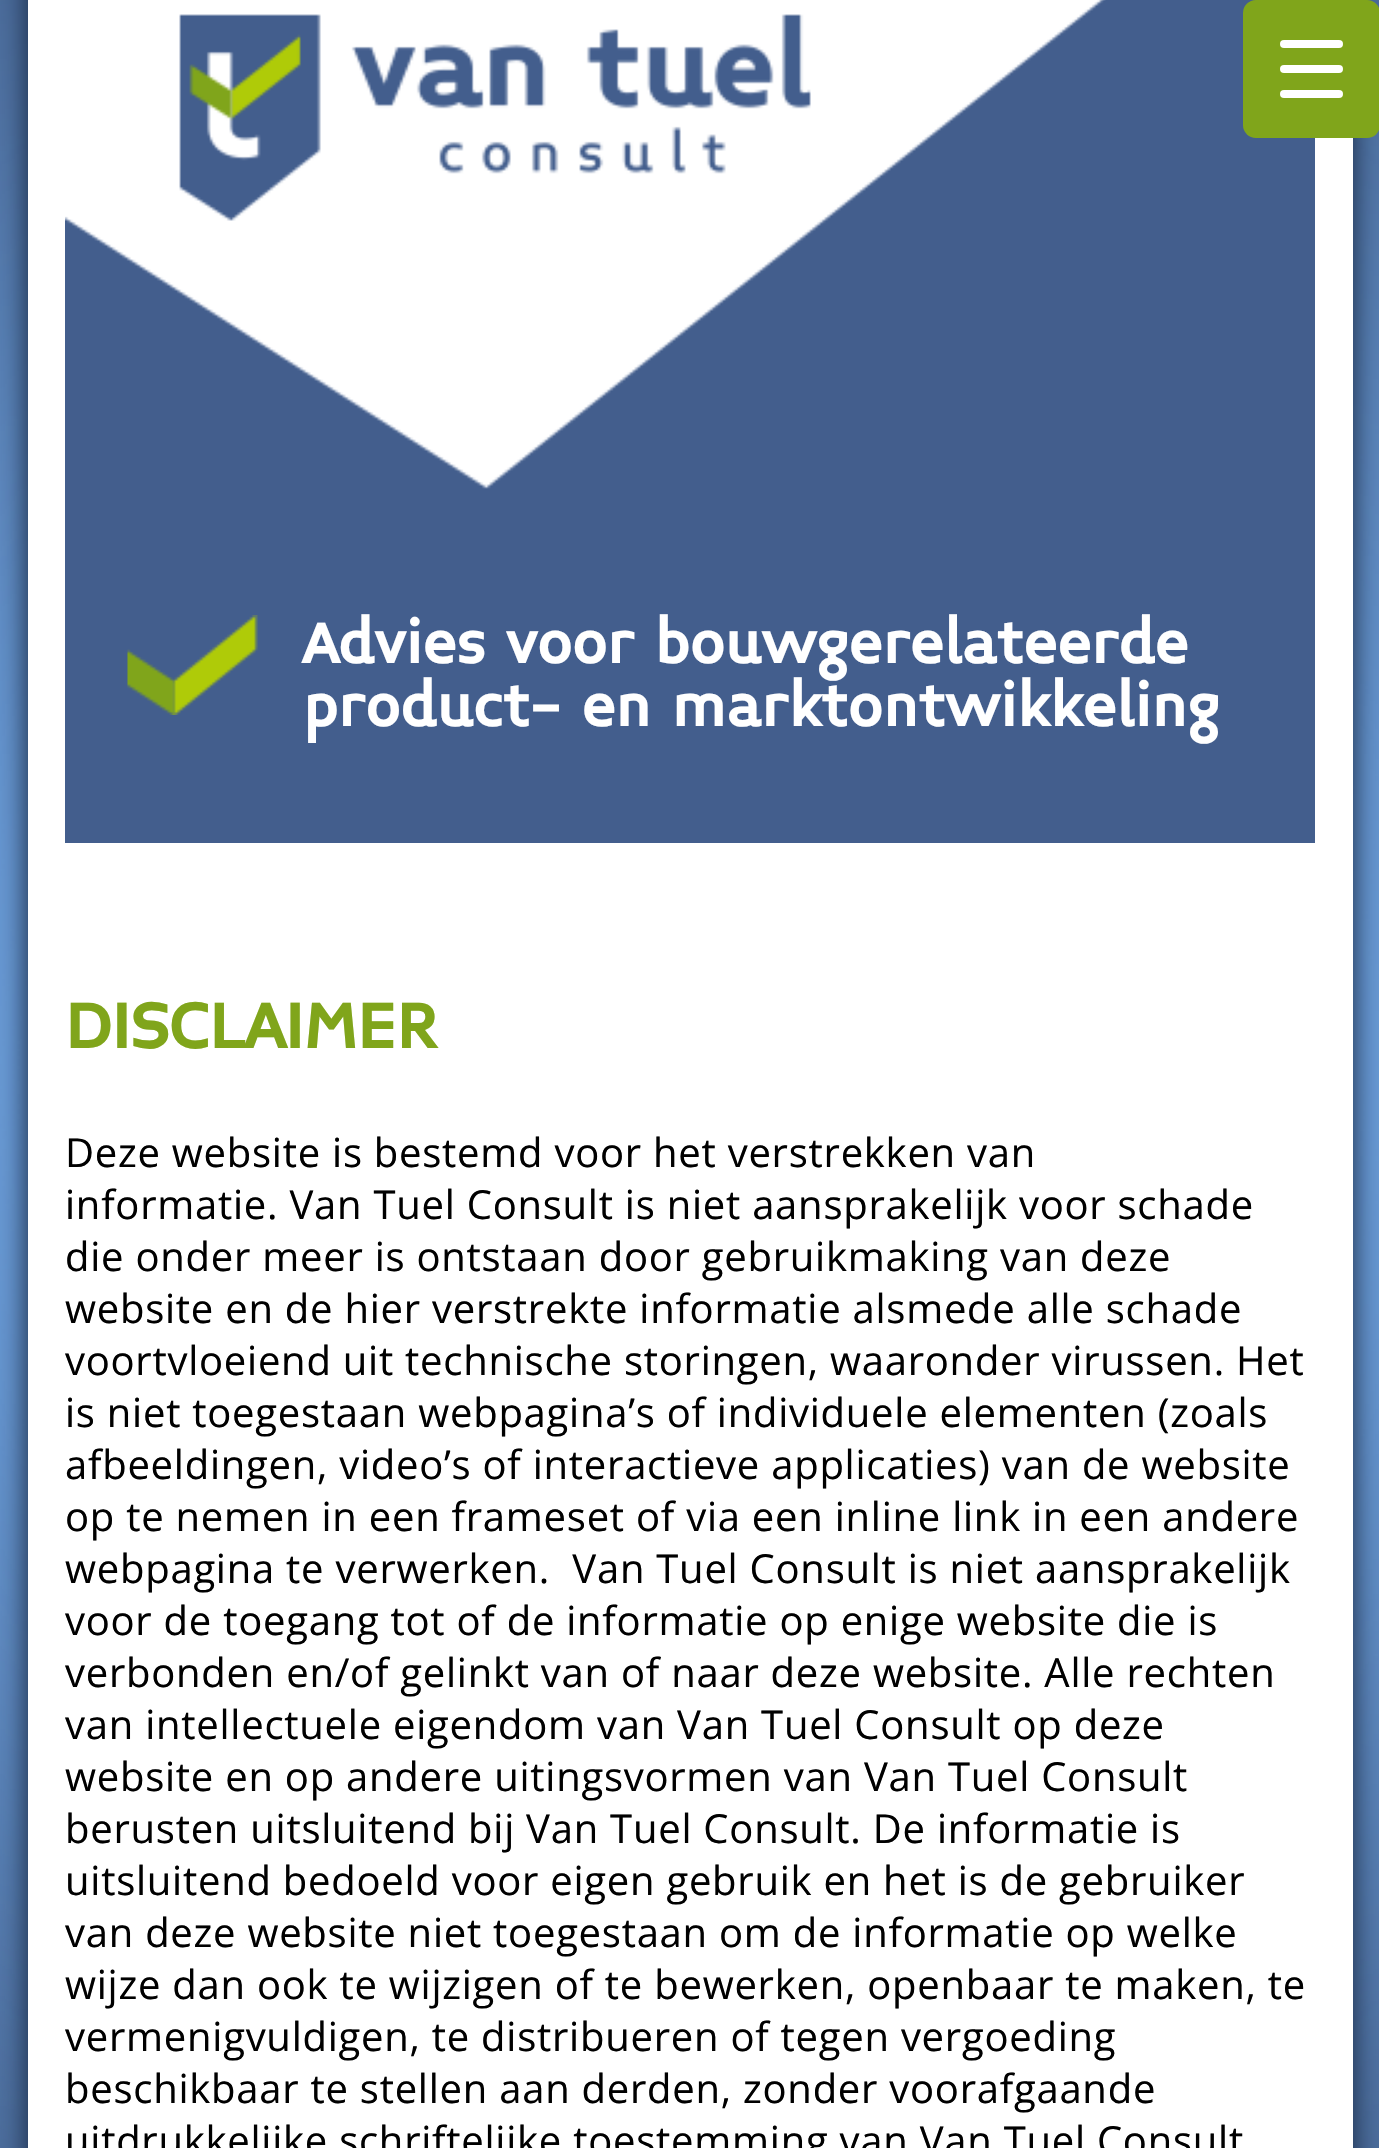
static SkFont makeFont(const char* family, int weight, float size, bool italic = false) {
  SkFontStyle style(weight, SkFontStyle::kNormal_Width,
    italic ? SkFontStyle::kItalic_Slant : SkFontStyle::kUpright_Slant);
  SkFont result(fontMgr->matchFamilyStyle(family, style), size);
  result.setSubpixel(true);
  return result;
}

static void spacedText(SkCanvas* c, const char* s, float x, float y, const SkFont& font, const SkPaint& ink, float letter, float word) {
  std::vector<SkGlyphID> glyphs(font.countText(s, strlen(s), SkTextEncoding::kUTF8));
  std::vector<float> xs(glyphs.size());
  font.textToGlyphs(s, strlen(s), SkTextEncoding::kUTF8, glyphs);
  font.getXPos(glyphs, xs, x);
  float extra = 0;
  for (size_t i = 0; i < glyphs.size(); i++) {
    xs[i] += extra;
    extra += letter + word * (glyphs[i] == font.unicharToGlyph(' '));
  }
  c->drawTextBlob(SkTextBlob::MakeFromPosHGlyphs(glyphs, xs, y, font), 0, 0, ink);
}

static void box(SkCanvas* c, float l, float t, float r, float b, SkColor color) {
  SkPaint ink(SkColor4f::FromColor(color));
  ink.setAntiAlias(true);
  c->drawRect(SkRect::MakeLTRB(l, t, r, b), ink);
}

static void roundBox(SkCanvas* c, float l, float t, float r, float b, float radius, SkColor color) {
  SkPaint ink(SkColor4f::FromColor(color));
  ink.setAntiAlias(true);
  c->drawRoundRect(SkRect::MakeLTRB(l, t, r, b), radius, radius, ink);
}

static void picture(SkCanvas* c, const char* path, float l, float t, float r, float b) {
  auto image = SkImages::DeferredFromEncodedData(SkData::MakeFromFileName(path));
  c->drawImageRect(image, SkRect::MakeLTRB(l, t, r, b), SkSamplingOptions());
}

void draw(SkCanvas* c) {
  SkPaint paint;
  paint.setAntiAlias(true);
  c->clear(0xff364b71);
  picture(c, "img_01.png", 0, 0, 1379, 2148);
  paint.setColor(0xff1c2e4a);
  paint.setMaskFilter(SkMaskFilter::MakeBlur(kNormal_SkBlurStyle, 12.5f));
  c->drawRect(SkRect::MakeLTRB(25, -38, 1355, 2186), paint);
  paint.setMaskFilter(nullptr);
  box(c, 28, 0, 1353, 2148, 0xffffffff);
  box(c, 65, 0, 1315, 843, 0xff435e8d);
  roundBox(c, 1243, 0, 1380, 138, 13, 0xff80a51b);
  roundBox(c, 1280, 65, 1343, 73, 4, 0xffffffff);
  roundBox(c, 1280, 40, 1343, 48, 4, 0xffffffff);
  roundBox(c, 1280, 90, 1343, 98, 4, 0xffffffff);
  picture(c, "img_02.png", 65, 0, 1106, 489);
  picture(c, "img_03.png", 127, 615, 258, 715);
  SkFont face1 = makeFont("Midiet", 700, 64);
  paint.setColor(0xffffffff);
  spacedText(c, "Advies voor bouwgerelateerde", 303, 663, face1, paint, 0.75f, 0);
  spacedText(c, "product- en marktontwikkeling", 303, 726, face1, paint, 0.75f, 0);
  SkFont face2 = makeFont("Midiet", 700, 72);
  paint.setColor(0xff80a51b);
  spacedText(c, "DISCLAIMER", 65, 1048, face2, paint, 0.75f, 0);
  SkFont face3 = makeFont("Open Sans", 400, 40);
  paint.setColor(0xff000000);
  spacedText(c, "Deze website is bestemd voor het verstrekken van", 65, 1167, face3, paint, 0.75f, 0);
  spacedText(c, "informatie. Van Tuel Consult is niet aansprakelijk voor schade", 65, 1219, face3, paint, 0.75f, 0);
  spacedText(c, "die onder meer is ontstaan door gebruikmaking van deze", 65, 1271, face3, paint, 0.75f, 0);
  spacedText(c, "website en de hier verstrekte informatie alsmede alle schade", 65, 1323, face3, paint, 0.75f, 0);
  spacedText(c, "voortvloeiend uit technische storingen, waaronder virussen. Het", 65, 1375, face3, paint, 0.75f, 0);
  spacedText(c, "is niet toegestaan webpagina’s of individuele elementen (zoals", 65, 1427, face3, paint, 0.75f, 0);
  spacedText(c, "afbeeldingen, video’s of interactieve applicaties) van de website", 65, 1479, face3, paint, 0.75f, 0);
  spacedText(c, "op te nemen in een frameset of via een inline link in een andere", 65, 1531, face3, paint, 0.75f, 0);
  spacedText(c, "webpagina te verwerken.  Van Tuel Consult is niet aansprakelijk", 65, 1583, face3, paint, 0.75f, 0);
  spacedText(c, "voor de toegang tot of de informatie op enige website die is", 65, 1635, face3, paint, 0.75f, 0);
  spacedText(c, "verbonden en/of gelinkt van of naar deze website. Alle rechten", 65, 1687, face3, paint, 0.75f, 0);
  spacedText(c, "van intellectuele eigendom van Van Tuel Consult op deze", 65, 1739, face3, paint, 0.75f, 0);
  spacedText(c, "website en op andere uitingsvormen van Van Tuel Consult", 65, 1791, face3, paint, 0.75f, 0);
  spacedText(c, "berusten uitsluitend bij Van Tuel Consult. De informatie is", 65, 1843, face3, paint, 0.75f, 0);
  spacedText(c, "uitsluitend bedoeld voor eigen gebruik en het is de gebruiker", 65, 1895, face3, paint, 0.75f, 0);
  spacedText(c, "van deze website niet toegestaan om de informatie op welke", 65, 1947, face3, paint, 0.75f, 0);
  spacedText(c, "wijze dan ook te wijzigen of te bewerken, openbaar te maken, te", 65, 1999, face3, paint, 0.75f, 0);
  spacedText(c, "vermenigvuldigen, te distribueren of tegen vergoeding", 65, 2051, face3, paint, 0.75f, 0);
  spacedText(c, "beschikbaar te stellen aan derden, zonder voorafgaande", 65, 2103, face3, paint, 0.75f, 0);
  spacedText(c, "uitdrukkelijke schriftelijke toestemming van Van Tuel Consult", 65, 2155, face3, paint, 0.75f, 0);
}
